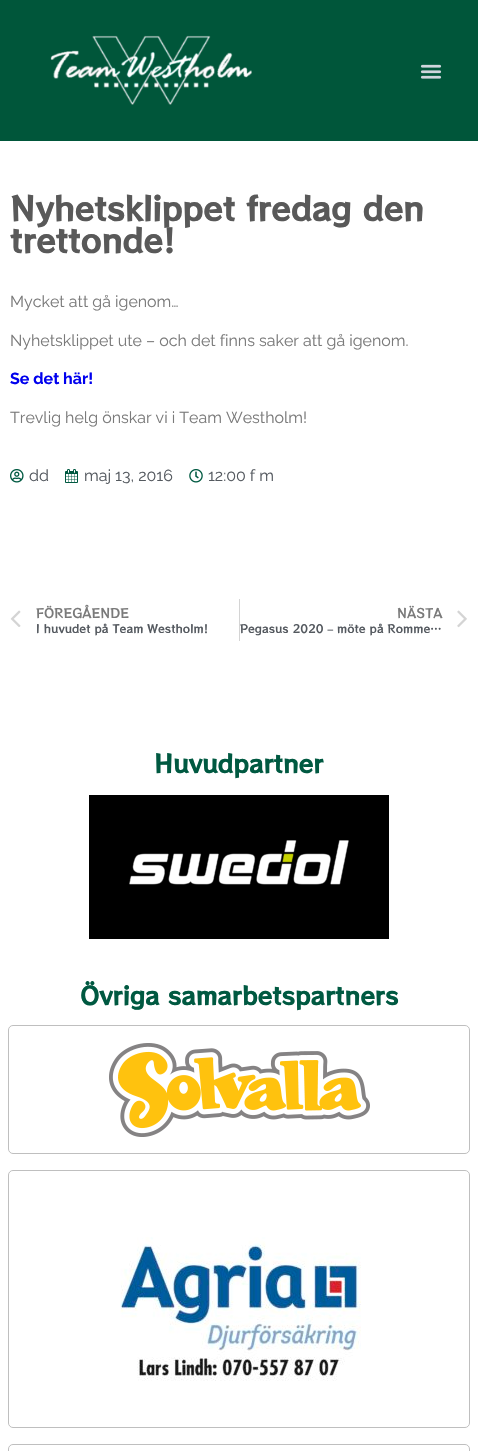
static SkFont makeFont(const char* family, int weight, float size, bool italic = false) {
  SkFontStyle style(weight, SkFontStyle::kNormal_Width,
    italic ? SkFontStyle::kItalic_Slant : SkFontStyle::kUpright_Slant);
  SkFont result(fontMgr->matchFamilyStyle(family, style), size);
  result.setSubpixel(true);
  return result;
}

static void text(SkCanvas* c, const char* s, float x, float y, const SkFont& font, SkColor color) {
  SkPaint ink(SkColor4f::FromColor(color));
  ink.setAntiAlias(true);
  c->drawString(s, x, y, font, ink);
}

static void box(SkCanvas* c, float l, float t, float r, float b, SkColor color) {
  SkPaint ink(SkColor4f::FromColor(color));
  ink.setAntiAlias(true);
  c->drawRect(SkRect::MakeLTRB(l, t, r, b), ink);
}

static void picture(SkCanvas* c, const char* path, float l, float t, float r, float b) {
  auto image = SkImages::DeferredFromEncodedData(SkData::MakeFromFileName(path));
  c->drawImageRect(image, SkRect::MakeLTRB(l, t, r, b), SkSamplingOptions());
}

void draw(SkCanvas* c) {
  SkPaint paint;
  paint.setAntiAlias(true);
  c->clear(0xffffffff);
  box(c, 0, 0, 478, 141, 0xff00563a);
  picture(c, "img_01.png", 50, 35, 252, 105);
  picture(c, "img_02.png", 420, 64, 442, 79);
  SkFont face1 = makeFont("RocknRoll One", 700, 32);
  text(c, "Nyhetsklippet fredag den", 10, 221, face1, 0xff595959);
  text(c, "trettonde!", 10, 253, face1, 0xff595959);
  SkFont face2 = makeFont("Raleway", 400, 16);
  text(c, "Mycket att gå igenom…", 10, 307, face2, 0xff7a7a7a);
  text(c, "Nyhetsklippet ute – och det finns saker att gå igenom.", 10, 346, face2, 0xff7a7a7a);
  SkFont face3 = makeFont("Raleway", 700, 16);
  text(c, "Se det här!", 10, 384, face3, 0xff0000ee);
  text(c, "Trevlig helg önskar vi i Team Westholm!", 10, 423, face2, 0xff7a7a7a);
  picture(c, "img_03.png", 10, 469, 24, 483);
  text(c, "dd", 29, 481, face2, 0xff54595f);
  picture(c, "img_04.png", 65, 469, 78, 483);
  text(c, "maj 13, 2016", 84, 481, face2, 0xff54595f);
  picture(c, "img_05.png", 189, 469, 203, 483);
  text(c, "12:00 f m", 208, 481, face2, 0xff54595f);
  picture(c, "img_06.png", 10, 610, 21, 627);
  SkFont face4 = makeFont("RocknRoll One", 400, 12.75f);
  text(c, "FÖREGÅENDE", 36, 618, face4, 0xff7a7a7a);
  SkFont face5 = makeFont("RocknRoll One", 400, 11.25f);
  text(c, "I huvudet på Team Westholm!", 36, 633, face5, 0xff54595f);
  box(c, 239, 599, 240, 641, 0xffd4d4d4);
  text(c, "NÄSTA", 397, 618, face4, 0xff7a7a7a);
  text(c, "Pegasus 2020 – möte på Romme…", 240, 633, face5, 0xff54595f);
  picture(c, "img_07.png", 457, 610, 467, 628);
  SkFont face6 = makeFont("RocknRoll One", 700, 24);
  text(c, "Huvudpartner", 154, 773, face6, 0xff005941);
  picture(c, "img_08.png", 89, 795, 389, 939);
  text(c, "Övriga samarbetspartners", 80, 1005, face6, 0xff005941);
  paint.setStyle(SkPaint::kStroke_Style);
  paint.setStrokeWidth(1);
  paint.setColor(0xffbfbfbf);
  c->drawRoundRect(SkRect::MakeLTRB(8.5f, 1025.5f, 469.5f, 1153.5f), 4.5f, 4.5f, paint);
  picture(c, "img_09.png", 109, 1043, 370, 1137);
  c->drawRoundRect(SkRect::MakeLTRB(8.5f, 1170.5f, 469.5f, 1427.5f), 4.5f, 4.5f, paint);
  picture(c, "img_10.png", 120, 1237, 361, 1381);
  c->drawRoundRect(SkRect::MakeLTRB(8.5f, 1444.5f, 469.5f, 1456.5f), 4.5f, 4.5f, paint);
}
